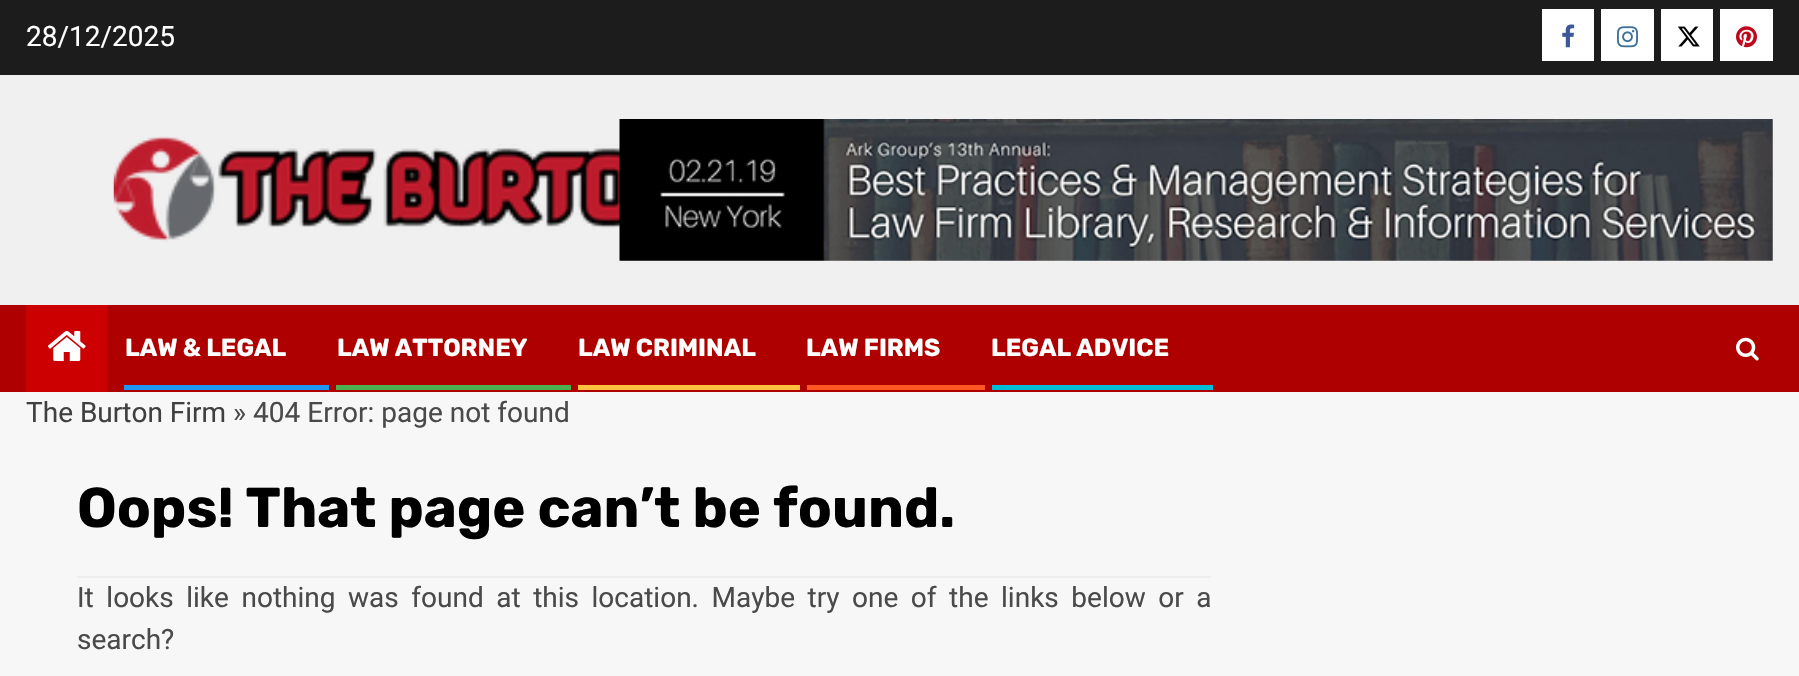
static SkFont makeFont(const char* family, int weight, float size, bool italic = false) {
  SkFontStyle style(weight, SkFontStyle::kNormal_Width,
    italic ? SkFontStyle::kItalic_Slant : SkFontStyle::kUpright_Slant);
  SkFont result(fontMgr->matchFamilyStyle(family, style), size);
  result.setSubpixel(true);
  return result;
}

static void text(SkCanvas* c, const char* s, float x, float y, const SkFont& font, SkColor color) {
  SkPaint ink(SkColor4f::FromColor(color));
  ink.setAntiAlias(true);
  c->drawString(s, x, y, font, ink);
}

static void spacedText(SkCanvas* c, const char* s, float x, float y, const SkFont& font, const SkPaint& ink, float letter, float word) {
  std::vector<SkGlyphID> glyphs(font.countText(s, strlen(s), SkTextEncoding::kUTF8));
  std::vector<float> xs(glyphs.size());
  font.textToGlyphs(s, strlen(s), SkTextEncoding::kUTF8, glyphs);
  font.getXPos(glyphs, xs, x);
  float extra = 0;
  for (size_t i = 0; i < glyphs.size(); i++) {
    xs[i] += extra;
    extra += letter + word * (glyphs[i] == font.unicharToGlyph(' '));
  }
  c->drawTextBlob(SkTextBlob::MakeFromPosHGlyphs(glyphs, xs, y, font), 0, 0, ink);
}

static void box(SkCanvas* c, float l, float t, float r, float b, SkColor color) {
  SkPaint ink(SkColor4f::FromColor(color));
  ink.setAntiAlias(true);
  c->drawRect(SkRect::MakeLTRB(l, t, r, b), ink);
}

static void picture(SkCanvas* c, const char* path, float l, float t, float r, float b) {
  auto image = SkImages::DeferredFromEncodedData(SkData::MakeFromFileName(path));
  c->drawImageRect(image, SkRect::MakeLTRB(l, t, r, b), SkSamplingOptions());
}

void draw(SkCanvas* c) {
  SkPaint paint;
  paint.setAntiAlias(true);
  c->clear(0xfff7f7f7);
  box(c, 0, 75, 1799, 305, 0xfff0f0f0);
  box(c, 0, 0, 1799, 75, 0xff1c1c1c);
  SkFont face1 = makeFont("Roboto", 400, 28);
  text(c, "28/12/2025", 26, 46, face1, 0xffffffff);
  box(c, 1542, 9, 1594, 61, 0xffffffff);
  picture(c, "img_01.png", 1562, 24, 1575, 48);
  box(c, 1601, 9, 1654, 61, 0xffffffff);
  picture(c, "img_02.png", 1617, 26, 1638, 48);
  box(c, 1661, 9, 1713, 61, 0xffffffff);
  picture(c, "img_03.png", 1677, 26, 1700, 47);
  box(c, 1720, 9, 1773, 61, 0xffffffff);
  picture(c, "img_04.png", 1736, 26, 1757, 48);
  picture(c, "img_05.png", 113, 136, 620, 242);
  picture(c, "img_06.png", 619, 119, 1773, 261);
  box(c, 0, 305, 1799, 392, 0xffaf0000);
  box(c, 26, 305, 107, 392, 0xffcc0000);
  picture(c, "img_07.png", 47, 331, 86, 361);
  SkFont face2 = makeFont("Rubik", 700, 24.5f);
  text(c, "LAW & LEGAL", 125, 356, face2, 0xffffffff);
  box(c, 124, 385, 329, 390, 0xff2196f3);
  text(c, "LAW ATTORNEY", 337, 356, face2, 0xffffffff);
  box(c, 336, 385, 571, 390, 0xff4caf50);
  text(c, "LAW CRIMINAL", 578, 356, face2, 0xffffffff);
  box(c, 578, 385, 800, 390, 0xffffbf3f);
  text(c, "LAW FIRMS", 806, 356, face2, 0xffffffff);
  box(c, 807, 385, 985, 390, 0xffff5722);
  text(c, "LEGAL ADVICE", 991, 356, face2, 0xffffffff);
  box(c, 992, 385, 1213, 390, 0xff00bcd4);
  picture(c, "img_08.png", 1736, 337, 1759, 361);
  text(c, "The Burton Firm", 26, 422, face1, 0xff404040);
  text(c, "» 404 Error: page not found", 233, 422, face1, 0xff4a4a4a);
  box(c, 77, 576, 1211, 578, 0xffeeeeee);
  SkFont face3 = makeFont("Rubik", 700, 56);
  text(c, "Oops! That page can’t be found.", 77, 527, face3, 0xff000000);
  paint.setColor(0xff4a4a4a);
  spacedText(c, "It looks like nothing was found at this location. Maybe try one of the links below or a", 77, 607, face1, paint, 0, 5.6f);
  text(c, "search?", 77, 649, face1, 0xff4a4a4a);
}
